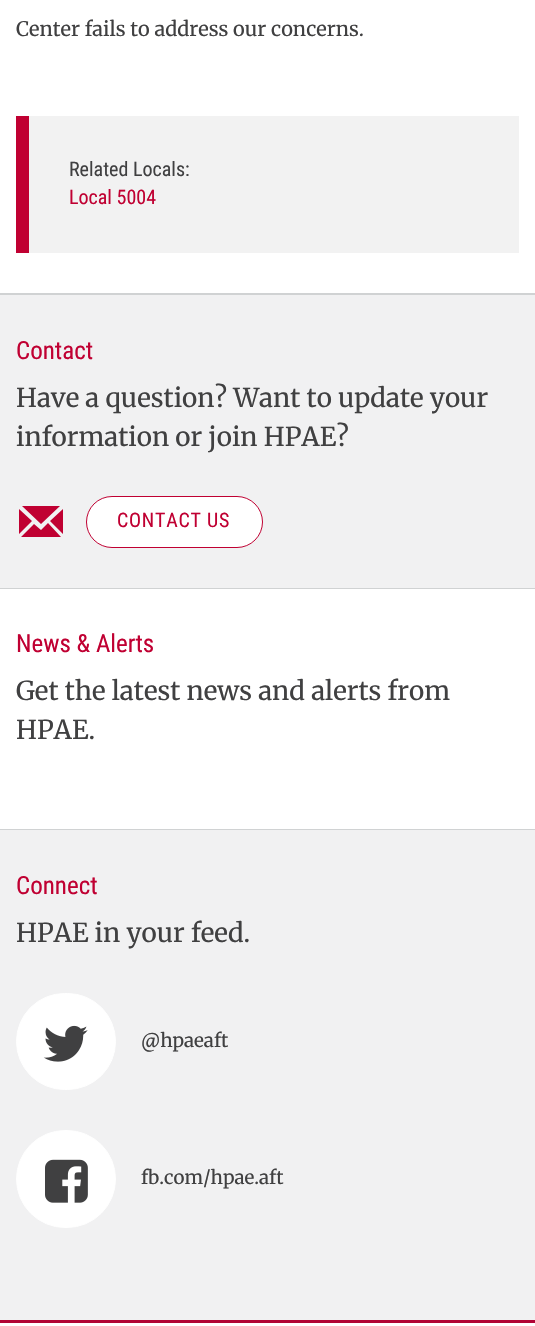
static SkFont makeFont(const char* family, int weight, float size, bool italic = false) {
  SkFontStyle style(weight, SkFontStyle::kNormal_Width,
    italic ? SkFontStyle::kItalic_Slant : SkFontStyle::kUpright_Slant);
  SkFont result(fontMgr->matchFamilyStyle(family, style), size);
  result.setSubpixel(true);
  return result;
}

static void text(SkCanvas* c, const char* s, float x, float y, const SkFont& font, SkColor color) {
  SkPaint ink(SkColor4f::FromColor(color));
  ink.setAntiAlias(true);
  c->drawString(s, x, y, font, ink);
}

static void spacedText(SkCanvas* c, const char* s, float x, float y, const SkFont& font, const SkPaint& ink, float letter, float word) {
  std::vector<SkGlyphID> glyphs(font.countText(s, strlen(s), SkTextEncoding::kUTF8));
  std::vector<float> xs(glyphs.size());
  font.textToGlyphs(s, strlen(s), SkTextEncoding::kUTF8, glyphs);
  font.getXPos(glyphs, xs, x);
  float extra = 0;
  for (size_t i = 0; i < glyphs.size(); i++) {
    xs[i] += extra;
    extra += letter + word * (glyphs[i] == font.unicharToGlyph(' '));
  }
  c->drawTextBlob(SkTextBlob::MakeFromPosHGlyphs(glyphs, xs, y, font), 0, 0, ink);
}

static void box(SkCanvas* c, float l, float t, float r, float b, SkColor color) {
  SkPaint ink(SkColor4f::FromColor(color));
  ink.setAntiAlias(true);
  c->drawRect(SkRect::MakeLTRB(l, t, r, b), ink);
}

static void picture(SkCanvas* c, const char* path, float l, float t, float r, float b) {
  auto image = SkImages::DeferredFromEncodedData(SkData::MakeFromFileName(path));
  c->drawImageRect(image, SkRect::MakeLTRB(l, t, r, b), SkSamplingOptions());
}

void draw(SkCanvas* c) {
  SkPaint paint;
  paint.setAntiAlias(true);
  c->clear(0xffffffff);
  SkFont face1 = makeFont("Merriweather", 400, 20);
  text(c, "Center fails to address our concerns.", 16, 36, face1, 0xff404041);
  box(c, 29, 116, 519, 253, 0xfff2f2f2);
  box(c, 16, 116, 29, 253, 0xffc00032);
  SkFont face2 = makeFont("Roboto Condensed", 400, 20);
  text(c, "Related Locals:", 69, 176, face2, 0xff404041);
  text(c, "Local 5004", 69, 204, face2, 0xffc00032);
  box(c, 0, 293, 535, 295, 0xffd0d2d3);
  box(c, 0, 295, 535, 588, 0xfff1f1f2);
  SkFont face3 = makeFont("Roboto Condensed", 400, 25);
  text(c, "Contact", 16, 359, face3, 0xffc00032);
  SkFont face4 = makeFont("Merriweather", 400, 26);
  text(c, "Have a question? Want to update your", 16, 407, face4, 0xff404041);
  text(c, "information or join HPAE?", 16, 446, face4, 0xff404041);
  paint.setColor(0xffc00032);
  c->drawPath(SkPathBuilder().moveTo(48, 523).lineTo(61, 537).lineTo(21, 537).lineTo(34, 524).lineTo(41, 530).close().moveTo(22, 506).lineTo(60, 506).lineTo(41, 524).close().moveTo(50, 521).lineTo(63, 509).lineTo(63, 534).close().moveTo(19, 534).lineTo(19, 509).lineTo(32, 521).close().detach(), paint);
  paint.setColor(0xffffffff);
  c->drawRoundRect(SkRect::MakeLTRB(86.5f, 496.5f, 262.5f, 547.5f), 25.5f, 25.5f, paint);
  paint.setStyle(SkPaint::kStroke_Style);
  paint.setStrokeWidth(1);
  paint.setColor(0xffc00032);
  c->drawRoundRect(SkRect::MakeLTRB(86.5f, 496.5f, 262.5f, 547.5f), 25.5f, 25.5f, paint);
  paint.setStyle(SkPaint::kFill_Style);
  spacedText(c, "CONTACT US", 117, 527, face2, paint, 0.75f, 0);
  box(c, 0, 588, 535, 589, 0xffd0d2d3);
  text(c, "News & Alerts", 16, 652, face3, 0xffc00032);
  text(c, "Get the latest news and alerts from", 16, 700, face4, 0xff404041);
  text(c, "HPAE.", 16, 739, face4, 0xff404041);
  box(c, 0, 830, 535, 1320, 0xfff1f1f2);
  box(c, 0, 829, 535, 830, 0xffd0d2d3);
  text(c, "Connect", 16, 894, face3, 0xffc00032);
  text(c, "HPAE in your feed.", 16, 942, face4, 0xff404041);
  paint.setColor(0xffffffff);
  c->drawRoundRect(SkRect::MakeLTRB(16.5f, 993.5f, 115.5f, 1089.5f), 48, 48, paint);
  paint.setStyle(SkPaint::kStroke_Style);
  c->drawRoundRect(SkRect::MakeLTRB(16.5f, 993.5f, 115.5f, 1089.5f), 48, 48, paint);
  picture(c, "img_01.png", 43, 1025, 88, 1062);
  SkFont face5 = makeFont("Merriweather", 400, 18.75f);
  text(c, "@hpaeaft", 141, 1047, face5, 0xff404041);
  paint.setStyle(SkPaint::kFill_Style);
  c->drawRoundRect(SkRect::MakeLTRB(16.5f, 1130.5f, 115.5f, 1227.5f), 48.5f, 48.5f, paint);
  paint.setStyle(SkPaint::kStroke_Style);
  c->drawRoundRect(SkRect::MakeLTRB(16.5f, 1130.5f, 115.5f, 1227.5f), 48.5f, 48.5f, paint);
  picture(c, "img_02.png", 45, 1159, 88, 1203);
  text(c, "fb.com/hpae.aft", 141, 1184, face5, 0xff404041);
  box(c, 0, 1320, 535, 1323, 0xffb10435);
}
